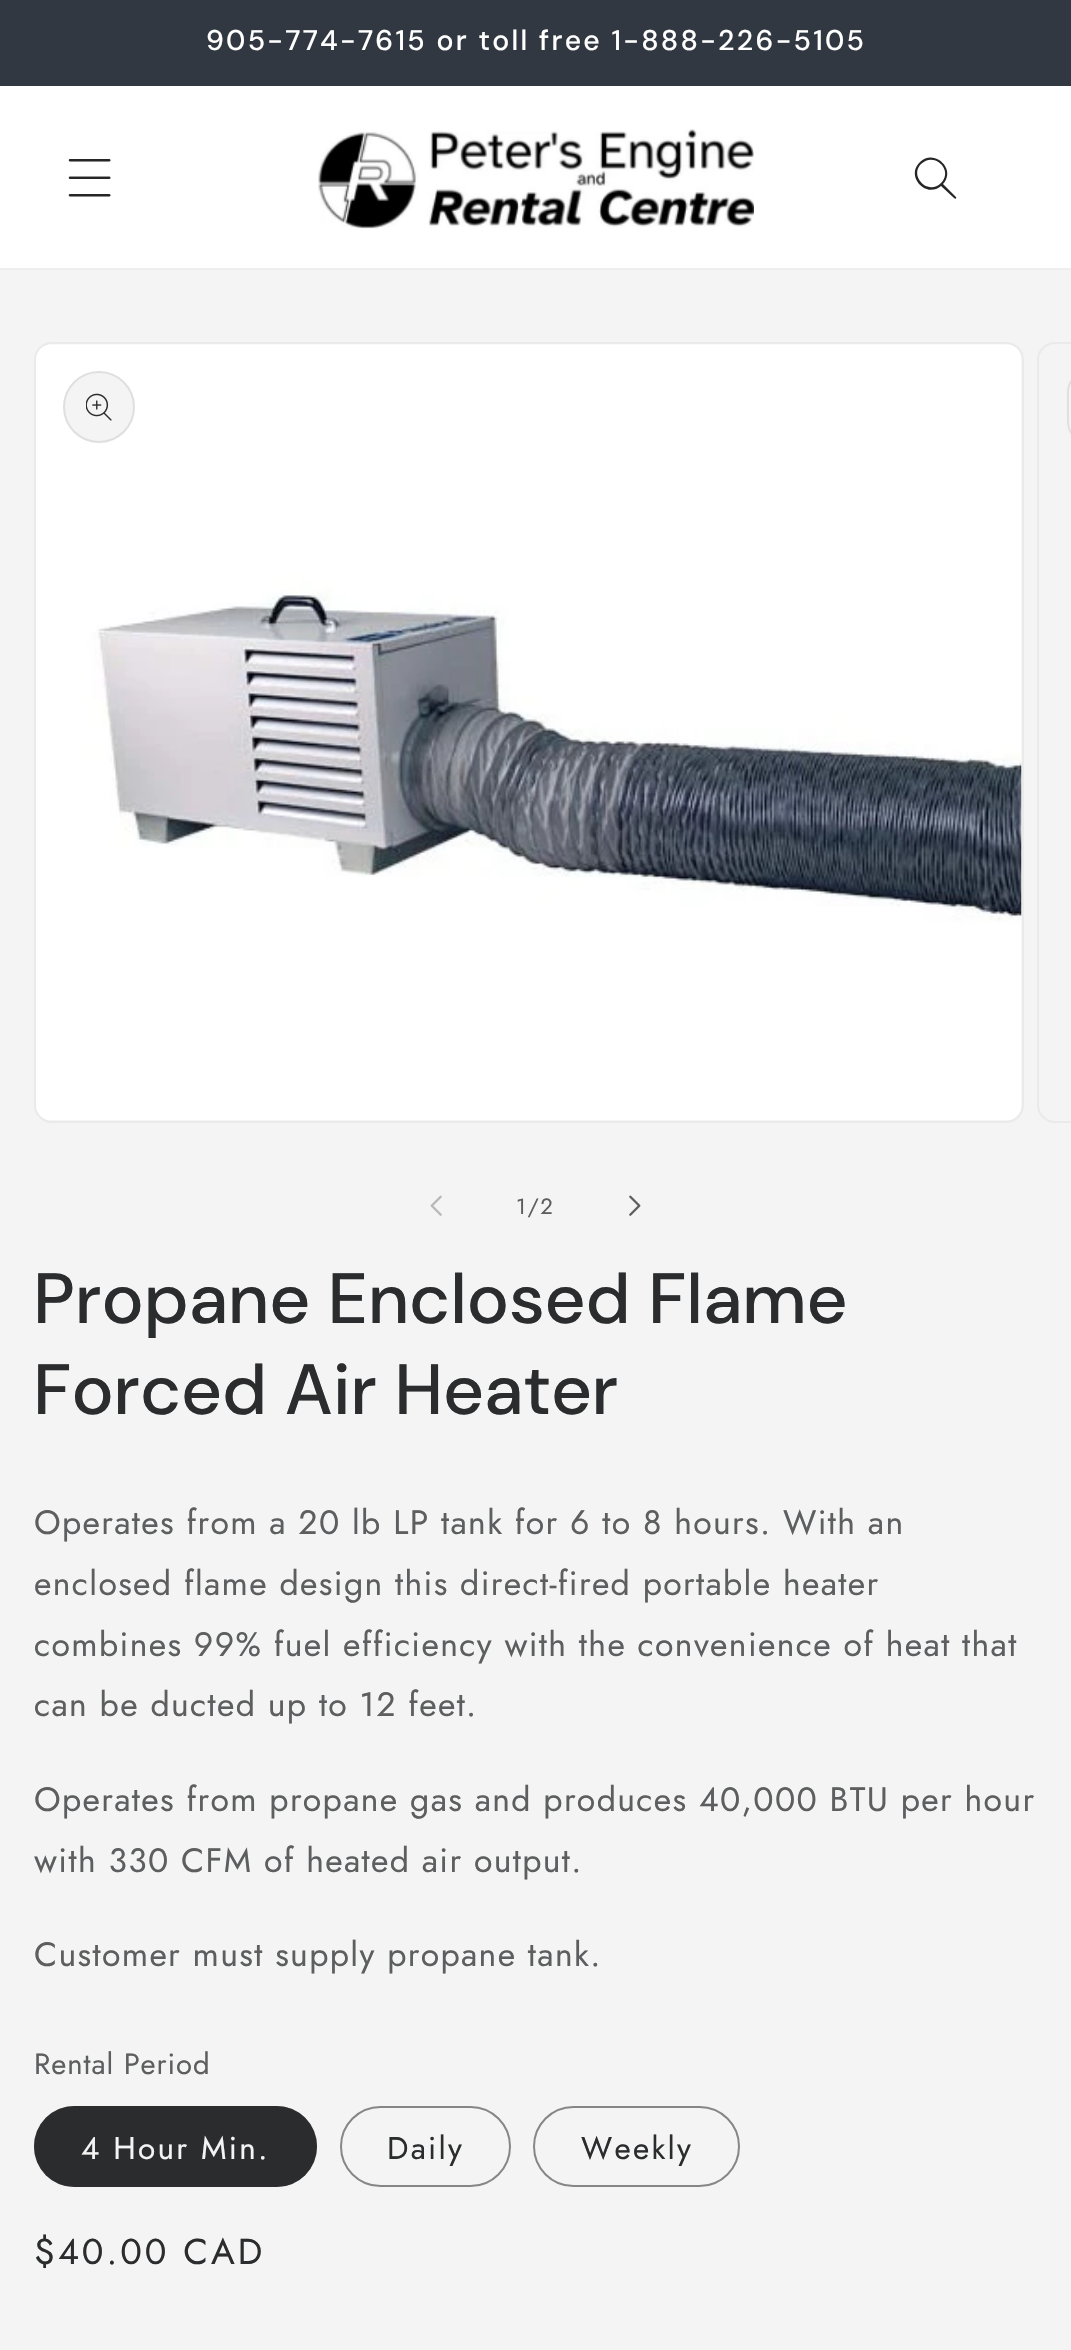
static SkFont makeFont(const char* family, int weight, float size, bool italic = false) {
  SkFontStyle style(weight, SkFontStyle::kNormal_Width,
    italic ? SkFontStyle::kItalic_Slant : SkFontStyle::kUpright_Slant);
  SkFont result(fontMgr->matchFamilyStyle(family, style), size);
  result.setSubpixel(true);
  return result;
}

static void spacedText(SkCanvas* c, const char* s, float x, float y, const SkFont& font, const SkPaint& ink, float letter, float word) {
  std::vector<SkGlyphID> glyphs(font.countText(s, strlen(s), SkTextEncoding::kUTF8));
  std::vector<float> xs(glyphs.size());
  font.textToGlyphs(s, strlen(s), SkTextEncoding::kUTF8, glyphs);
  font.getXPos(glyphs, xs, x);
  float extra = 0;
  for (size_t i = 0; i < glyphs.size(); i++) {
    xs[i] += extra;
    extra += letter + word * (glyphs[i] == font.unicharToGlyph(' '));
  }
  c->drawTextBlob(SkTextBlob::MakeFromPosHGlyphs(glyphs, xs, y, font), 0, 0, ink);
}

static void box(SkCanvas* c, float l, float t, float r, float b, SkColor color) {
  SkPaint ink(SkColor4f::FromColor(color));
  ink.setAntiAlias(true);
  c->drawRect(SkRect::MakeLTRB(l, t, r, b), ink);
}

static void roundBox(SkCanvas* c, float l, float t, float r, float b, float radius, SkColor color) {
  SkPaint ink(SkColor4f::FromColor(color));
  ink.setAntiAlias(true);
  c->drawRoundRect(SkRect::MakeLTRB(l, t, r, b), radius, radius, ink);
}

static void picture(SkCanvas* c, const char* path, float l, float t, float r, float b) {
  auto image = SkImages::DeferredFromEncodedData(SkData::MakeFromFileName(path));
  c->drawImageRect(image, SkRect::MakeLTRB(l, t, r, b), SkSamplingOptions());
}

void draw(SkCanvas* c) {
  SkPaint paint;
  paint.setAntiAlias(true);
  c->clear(0xfff4f4f4);
  box(c, 0, 0, 1071, 86, 0xff323841);
  SkFont face1 = makeFont("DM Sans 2", 500, 28.35f);
  paint.setColor(0xffffffff);
  spacedText(c, "905-774-7615 or toll free 1-888-226-5105", 206, 50, face1, paint, 2.25f, 0);
  box(c, 0, 86, 1071, 268, 0xffffffff);
  box(c, 0, 268, 1071, 270, 0xffeeeeee);
  picture(c, "img_01.png", 68, 159, 111, 197);
  picture(c, "img_02.png", 318, 129, 754, 229);
  paint.setColor(0xff262626);
  c->drawPath(SkPathBuilder(SkPathFillType::kEvenOdd).moveTo(941, 183).cubicTo(928, 196, 909, 176, 921, 164).cubicTo(934, 151, 954, 170, 941, 183).moveTo(941, 186).cubicTo(926, 199, 905, 176, 920, 162).cubicTo(934, 148, 957, 169, 943, 184).lineTo(956, 197).cubicTo(957, 199, 955, 199, 954, 198).close().detach(), paint);
  paint.setStyle(SkPaint::kStroke_Style);
  paint.setStrokeWidth(2);
  paint.setColor(0xffeaeaea);
  c->drawRoundRect(SkRect::MakeLTRB(35, 343, 1023, 1122), 17, 17, paint);
  picture(c, "img_03.png", 36, 344, 1022, 1120);
  paint.setStyle(SkPaint::kFill_Style);
  paint.setColor(0xfff4f4f4);
  c->drawCircle(99, 407, 36, paint);
  paint.setStyle(SkPaint::kStroke_Style);
  paint.setColor(0x1a2b2c2d);
  c->drawCircle(99, 407, 35, paint);
  picture(c, "img_04.png", 86, 393, 112, 421);
  paint.setColor(0xffeaeaea);
  c->drawRoundRect(SkRect::MakeLTRB(1038, 343, 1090, 1122), 17, 17, paint);
  paint.setColor(0xffe0e0e0);
  c->drawRoundRect(SkRect::MakeLTRB(1068, 372, 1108, 442), 35, 35, paint);
  picture(c, "img_05.png", 430, 1195, 442, 1216);
  SkFont face2 = makeFont("Jost", 400, 22);
  paint.setStyle(SkPaint::kFill_Style);
  paint.setColor(0xff5d5e5f);
  spacedText(c, "1/2", 516, 1214, face2, paint, 1.5f, 0);
  picture(c, "img_06.png", 629, 1195, 641, 1216);
  SkFont face3 = makeFont("DM Sans", 500, 70.9f);
  paint.setColor(0xff2b2c2d);
  spacedText(c, "Propane Enclosed Flame", 34, 1323, face3, paint, 1.4f, 0);
  spacedText(c, "Forced Air Heater", 34, 1414, face3, paint, 1.4f, 0);
  SkFont face4 = makeFont("Jost", 400, 33.75f);
  paint.setColor(0xff5d5e5f);
  spacedText(c, "Operates from a 20 lb LP tank for 6 to 8 hours. With an", 34, 1534, face4, paint, 1.35f, 0);
  spacedText(c, "enclosed flame design this direct-fired portable heater", 34, 1595, face4, paint, 1.35f, 0);
  spacedText(c, "combines 99% fuel efficiency with the convenience of heat that", 34, 1656, face4, paint, 1.35f, 0);
  spacedText(c, "can be ducted up to 12 feet.", 34, 1716, face4, paint, 1.35f, 0);
  spacedText(c, "Operates from propane gas and produces 40,000 BTU per hour", 34, 1811, face4, paint, 1.35f, 0);
  spacedText(c, "with 330 CFM of heated air output.", 34, 1872, face4, paint, 1.35f, 0);
  spacedText(c, "Customer must supply propane tank.", 34, 1966, face4, paint, 1.35f, 0);
  SkFont face5 = makeFont("Jost", 400, 29.25f);
  spacedText(c, "Rental Period", 34, 2074, face5, paint, 0.9f, 0);
  roundBox(c, 34, 2106, 317, 2187, 40.5f, 0xff2b2c2d);
  paint.setStyle(SkPaint::kStroke_Style);
  paint.setColor(0x8c2b2c2d);
  c->drawRoundRect(SkRect::MakeLTRB(35, 2107, 316, 2186), 39.5f, 39.5f, paint);
  SkFont face6 = makeFont("Jost", 400, 31.5f);
  paint.setStyle(SkPaint::kFill_Style);
  paint.setColor(0xfff4f4f4);
  spacedText(c, "4 Hour Min.", 81, 2159, face6, paint, 2.25f, 0);
  paint.setStyle(SkPaint::kStroke_Style);
  paint.setColor(0xff858687);
  c->drawRoundRect(SkRect::MakeLTRB(341, 2107, 510, 2186), 39.5f, 39.5f, paint);
  paint.setStyle(SkPaint::kFill_Style);
  paint.setColor(0xff2b2c2d);
  spacedText(c, "Daily", 387, 2159, face6, paint, 2.25f, 0);
  paint.setStyle(SkPaint::kStroke_Style);
  paint.setColor(0xff858687);
  c->drawRoundRect(SkRect::MakeLTRB(534, 2107, 739, 2186), 39.5f, 39.5f, paint);
  paint.setStyle(SkPaint::kFill_Style);
  paint.setColor(0xff2b2c2d);
  spacedText(c, "Weekly", 581, 2159, face6, paint, 2.25f, 0);
  SkFont face7 = makeFont("Jost", 400, 36);
  spacedText(c, "$40.00 CAD", 34, 2264, face7, paint, 3, 0);
}
